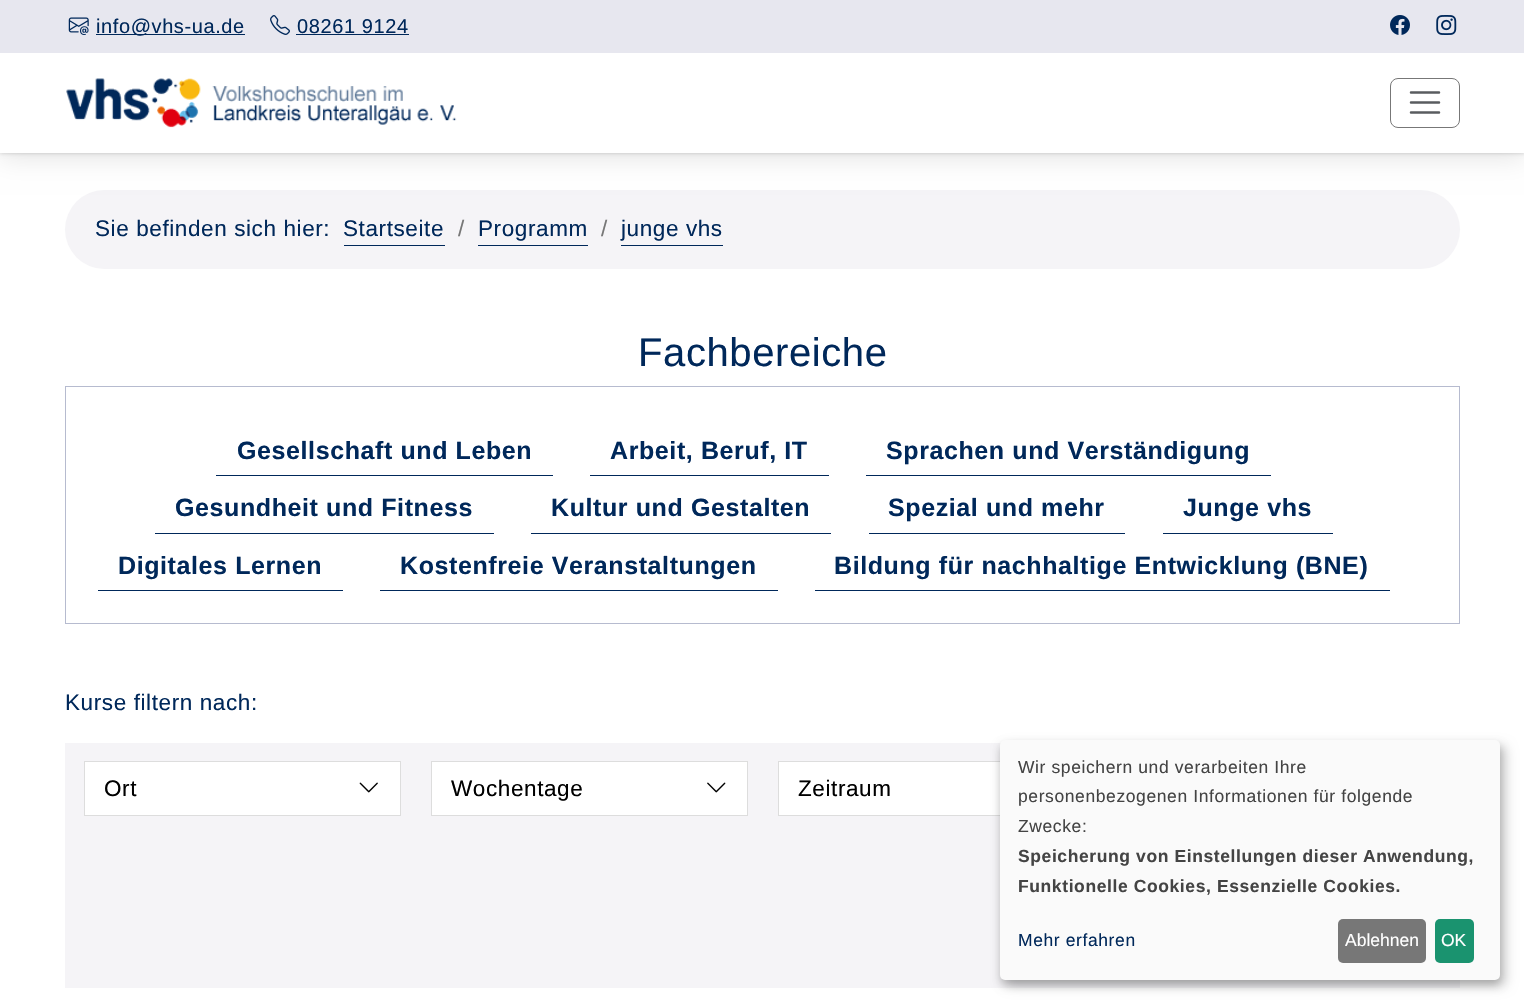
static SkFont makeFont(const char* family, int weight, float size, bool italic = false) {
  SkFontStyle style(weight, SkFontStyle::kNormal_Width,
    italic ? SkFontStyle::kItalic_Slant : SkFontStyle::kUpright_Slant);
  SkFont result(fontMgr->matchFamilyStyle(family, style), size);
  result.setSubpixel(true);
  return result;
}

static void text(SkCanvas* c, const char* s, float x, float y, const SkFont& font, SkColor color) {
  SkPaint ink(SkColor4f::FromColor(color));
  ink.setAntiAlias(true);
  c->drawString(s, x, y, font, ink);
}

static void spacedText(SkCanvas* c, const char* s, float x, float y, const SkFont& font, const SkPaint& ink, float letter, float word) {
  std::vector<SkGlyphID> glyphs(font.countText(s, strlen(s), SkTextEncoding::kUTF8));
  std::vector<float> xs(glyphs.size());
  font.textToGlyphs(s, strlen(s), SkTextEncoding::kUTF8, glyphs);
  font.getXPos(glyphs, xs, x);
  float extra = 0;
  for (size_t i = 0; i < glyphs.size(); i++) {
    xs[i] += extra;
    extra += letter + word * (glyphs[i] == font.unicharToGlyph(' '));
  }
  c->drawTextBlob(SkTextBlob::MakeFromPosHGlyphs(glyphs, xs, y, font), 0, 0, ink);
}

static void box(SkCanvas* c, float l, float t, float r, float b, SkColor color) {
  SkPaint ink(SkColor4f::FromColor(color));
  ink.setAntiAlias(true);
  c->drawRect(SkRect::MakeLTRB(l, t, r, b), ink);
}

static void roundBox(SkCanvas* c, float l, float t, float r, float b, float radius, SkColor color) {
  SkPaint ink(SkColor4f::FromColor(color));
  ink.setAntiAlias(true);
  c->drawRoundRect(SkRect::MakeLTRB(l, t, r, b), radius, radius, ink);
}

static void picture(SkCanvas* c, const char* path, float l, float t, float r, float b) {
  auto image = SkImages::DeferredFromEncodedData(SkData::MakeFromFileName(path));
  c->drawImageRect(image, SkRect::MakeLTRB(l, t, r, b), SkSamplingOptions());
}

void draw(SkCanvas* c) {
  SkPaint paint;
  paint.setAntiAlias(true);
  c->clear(0xffffffff);
  roundBox(c, 65, 190, 1460, 269, 39.5f, 0xfff5f4f7);
  c->save();
  c->clipPath(SkPathBuilder(SkPathFillType::kEvenOdd).moveTo(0, 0).lineTo(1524, 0).lineTo(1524, 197).lineTo(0, 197).close().moveTo(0, 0).lineTo(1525, 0).lineTo(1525, 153).lineTo(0, 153).close().detach(), true);
  paint.setColor(0x1a000000);
  paint.setMaskFilter(SkMaskFilter::MakeBlur(kNormal_SkBlurStyle, 12.5f));
  c->drawRect(SkRect::MakeLTRB(0, 5, 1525, 158), paint);
  paint.setMaskFilter(nullptr);
  c->restore();
  c->save();
  c->clipPath(SkPathBuilder(SkPathFillType::kEvenOdd).moveTo(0, 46).lineTo(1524, 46).lineTo(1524, 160).lineTo(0, 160).close().moveTo(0, 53).lineTo(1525, 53).lineTo(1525, 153).lineTo(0, 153).close().detach(), true);
  paint.setColor(0x33000000);
  paint.setMaskFilter(SkMaskFilter::MakeBlur(kNormal_SkBlurStyle, 2));
  c->drawRect(SkRect::MakeLTRB(0, 53, 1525, 153), paint);
  paint.setMaskFilter(nullptr);
  c->restore();
  box(c, 0, 0, 1524, 53, 0xffe7e7ef);
  picture(c, "img_01.png", 68, 17, 89, 35);
  box(c, 96, 34, 245, 35, 0xff00285a);
  SkFont face1 = makeFont("Liberation Sans", 400, 20);
  paint.setColor(0xff00285a);
  spacedText(c, "info@vhs-ua.de", 96, 33, face1, paint, 0.6f, 0);
  picture(c, "img_02.png", 270, 15, 290, 35);
  spacedText(c, "08261 9124", 297, 33, face1, paint, 0.6f, 0);
  box(c, 296, 34, 409, 35, 0xff00285a);
  picture(c, "img_03.png", 1390, 15, 1410, 35);
  picture(c, "img_04.png", 1436, 15, 1457, 35);
  picture(c, "img_05.png", 66, 78, 457, 128);
  paint.setStyle(SkPaint::kStroke_Style);
  paint.setStrokeWidth(1);
  paint.setColor(0xff777777);
  c->drawRoundRect(SkRect::MakeLTRB(1390.5f, 78.5f, 1459.5f, 127.5f), 7.5f, 7.5f, paint);
  paint.setStrokeWidth(2.5f);
  paint.setStrokeCap(SkPaint::kRound_Cap);
  paint.setColor(0xff595c5f);
  c->drawPath(SkPathBuilder().moveTo(1411, 92.5f).lineTo(1439, 92.5f).moveTo(1411, 102.5f).lineTo(1439, 102.5f).moveTo(1411, 112.5f).lineTo(1439, 112.5f).detach(), paint);
  SkFont face2 = makeFont("Liberation Sans", 400, 22.5f);
  paint.setStyle(SkPaint::kFill_Style);
  paint.setColor(0xff00285a);
  spacedText(c, "Sie befinden sich hier:", 95, 236, face2, paint, 0.6f, 0);
  spacedText(c, "Startseite", 343, 236, face2, paint, 0.6f, 0);
  box(c, 344, 245, 445, 246, 0xff00285a);
  paint.setColor(0xff777777);
  spacedText(c, "/", 458, 236, face2, paint, 0.6f, 0);
  paint.setColor(0xff00285a);
  spacedText(c, "Programm", 478, 236, face2, paint, 0.6f, 0);
  box(c, 478, 245, 588, 246, 0xff00285a);
  paint.setColor(0xff777777);
  spacedText(c, "/", 601, 236, face2, paint, 0.6f, 0);
  paint.setColor(0xff00285a);
  spacedText(c, "junge vhs", 621, 236, face2, paint, 0.6f, 0);
  box(c, 621, 245, 723, 246, 0xff00285a);
  SkFont face3 = makeFont("Liberation Sans", 400, 40);
  spacedText(c, "Fachbereiche", 638, 366, face3, paint, 0.6f, 0);
  paint.setStyle(SkPaint::kStroke_Style);
  paint.setStrokeWidth(1);
  paint.setStrokeCap(SkPaint::kButt_Cap);
  paint.setColor(0xffb6bbcf);
  c->drawRect(SkRect::MakeLTRB(65.5f, 386.5f, 1459.5f, 623.5f), paint);
  box(c, 216, 475, 553, 476, 0xff00285a);
  SkFont face4 = makeFont("Liberation Sans", 700, 25);
  paint.setStyle(SkPaint::kFill_Style);
  paint.setColor(0xff00285a);
  spacedText(c, "Gesellschaft und Leben", 237, 459, face4, paint, 0.6f, 0);
  box(c, 590, 475, 829, 476, 0xff00285a);
  spacedText(c, "Arbeit, Beruf, IT", 610, 459, face4, paint, 0.6f, 0);
  box(c, 866, 475, 1271, 476, 0xff00285a);
  spacedText(c, "Sprachen und Verständigung", 886, 459, face4, paint, 0.6f, 0);
  box(c, 155, 533, 494, 534, 0xff00285a);
  spacedText(c, "Gesundheit und Fitness", 175, 516, face4, paint, 0.6f, 0);
  box(c, 531, 533, 831, 534, 0xff00285a);
  spacedText(c, "Kultur und Gestalten", 551, 516, face4, paint, 0.6f, 0);
  box(c, 869, 533, 1125, 534, 0xff00285a);
  spacedText(c, "Spezial und mehr", 888, 516, face4, paint, 0.6f, 0);
  box(c, 1163, 533, 1333, 534, 0xff00285a);
  spacedText(c, "Junge vhs", 1183, 516, face4, paint, 0.6f, 0);
  box(c, 98, 590, 343, 591, 0xff00285a);
  spacedText(c, "Digitales Lernen", 118, 574, face4, paint, 0.6f, 0);
  box(c, 380, 590, 778, 591, 0xff00285a);
  spacedText(c, "Kostenfreie Veranstaltungen", 400, 574, face4, paint, 0.6f, 0);
  box(c, 815, 590, 1390, 591, 0xff00285a);
  spacedText(c, "Bildung für nachhaltige Entwicklung (BNE)", 834, 574, face4, paint, 0.6f, 0);
  spacedText(c, "Kurse filtern nach:", 65, 710, face2, paint, 0.6f, 0);
  box(c, 65, 743, 1460, 988, 0xfff5f4f7);
  paint.setColor(0xffffffff);
  c->drawRect(SkRect::MakeLTRB(84.5f, 761.5f, 400.5f, 815.5f), paint);
  paint.setStyle(SkPaint::kStroke_Style);
  paint.setColor(0xffdddddd);
  c->drawRect(SkRect::MakeLTRB(84.5f, 761.5f, 400.5f, 815.5f), paint);
  paint.setStyle(SkPaint::kFill_Style);
  paint.setColor(0xff000000);
  spacedText(c, "Ort", 104, 796, face2, paint, 0.6f, 0);
  picture(c, "img_06.png", 359, 782, 378, 793);
  paint.setColor(0xffffffff);
  c->drawRect(SkRect::MakeLTRB(431.5f, 761.5f, 747.5f, 815.5f), paint);
  paint.setStyle(SkPaint::kStroke_Style);
  paint.setColor(0xffdddddd);
  c->drawRect(SkRect::MakeLTRB(431.5f, 761.5f, 747.5f, 815.5f), paint);
  paint.setStyle(SkPaint::kFill_Style);
  paint.setColor(0xff000000);
  spacedText(c, "Wochentage", 451, 796, face2, paint, 0.6f, 0);
  picture(c, "img_07.png", 707, 782, 726, 793);
  box(c, 779, 762, 1000, 815, 0xffffffff);
  paint.setStyle(SkPaint::kStroke_Style);
  paint.setColor(0xffdddddd);
  c->drawRect(SkRect::MakeLTRB(778.5f, 761.5f, 1094.5f, 815.5f), paint);
  paint.setStyle(SkPaint::kFill_Style);
  paint.setColor(0xff000000);
  spacedText(c, "Zeitraum", 798, 796, face2, paint, 0.6f, 0);
  paint.setColor(0x30000000);
  paint.setMaskFilter(SkMaskFilter::MakeBlur(kNormal_SkBlurStyle, 6));
  c->drawRoundRect(SkRect::MakeLTRB(1006, 746, 1506, 986), 5, 5, paint);
  paint.setMaskFilter(nullptr);
  paint.setColor(0x33000000);
  paint.setMaskFilter(SkMaskFilter::MakeBlur(kNormal_SkBlurStyle, 4));
  c->drawRoundRect(SkRect::MakeLTRB(1000, 745, 1500, 985), 5, 5, paint);
  paint.setMaskFilter(nullptr);
  roundBox(c, 1000, 740, 1500, 980, 5, 0xfffafafa);
  SkFont face5 = makeFont("Liberation Sans", 400, 17.5f);
  paint.setColor(0xff444444);
  spacedText(c, "Wir speichern und verarbeiten Ihre", 1018, 773, face5, paint, 0.6f, 0);
  spacedText(c, "personenbezogenen Informationen für folgende", 1018, 802, face5, paint, 0.6f, 0);
  spacedText(c, "Zwecke:", 1018, 832, face5, paint, 0.6f, 0);
  SkFont face6 = makeFont("Liberation Sans", 700, 17.5f);
  spacedText(c, "Speicherung von Einstellungen dieser Anwendung,", 1018, 862, face6, paint, 0.6f, 0);
  spacedText(c, "Funktionelle Cookies, Essenzielle Cookies.", 1018, 892, face6, paint, 0.6f, 0);
  paint.setColor(0xff00285a);
  spacedText(c, "Mehr erfahren", 1018, 946, face5, paint, 0.6f, 0);
  roundBox(c, 1338, 919, 1426, 963, 5, 0xff777777);
  text(c, "Ablehnen", 1345, 946, face5, 0xffffffff);
  roundBox(c, 1435, 919, 1474, 963, 5, 0xff1a936f);
  text(c, "OK", 1441, 946, face5, 0xffffffff);
}
